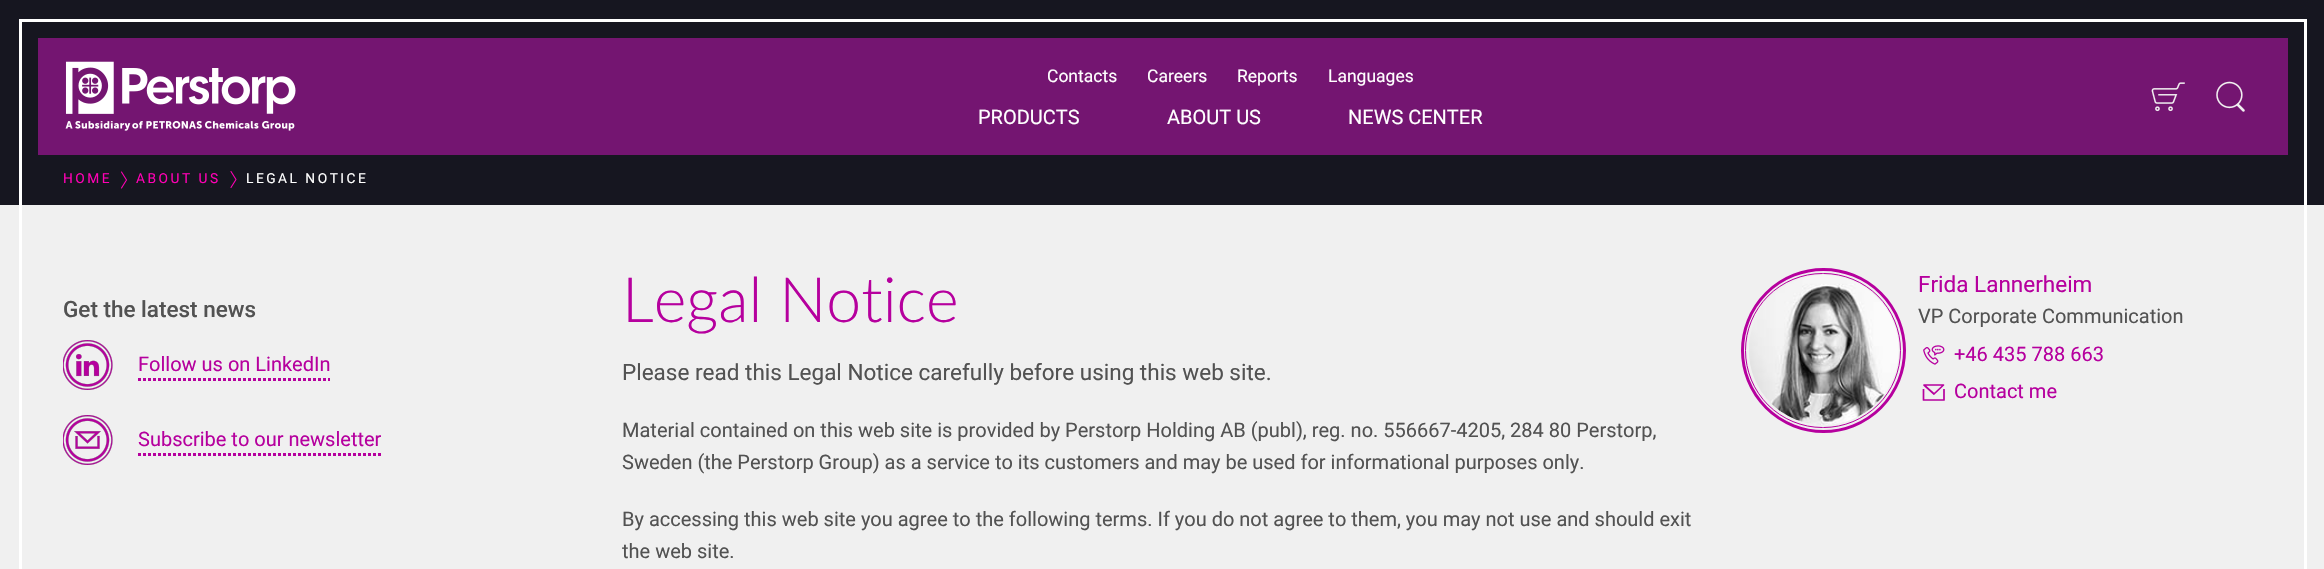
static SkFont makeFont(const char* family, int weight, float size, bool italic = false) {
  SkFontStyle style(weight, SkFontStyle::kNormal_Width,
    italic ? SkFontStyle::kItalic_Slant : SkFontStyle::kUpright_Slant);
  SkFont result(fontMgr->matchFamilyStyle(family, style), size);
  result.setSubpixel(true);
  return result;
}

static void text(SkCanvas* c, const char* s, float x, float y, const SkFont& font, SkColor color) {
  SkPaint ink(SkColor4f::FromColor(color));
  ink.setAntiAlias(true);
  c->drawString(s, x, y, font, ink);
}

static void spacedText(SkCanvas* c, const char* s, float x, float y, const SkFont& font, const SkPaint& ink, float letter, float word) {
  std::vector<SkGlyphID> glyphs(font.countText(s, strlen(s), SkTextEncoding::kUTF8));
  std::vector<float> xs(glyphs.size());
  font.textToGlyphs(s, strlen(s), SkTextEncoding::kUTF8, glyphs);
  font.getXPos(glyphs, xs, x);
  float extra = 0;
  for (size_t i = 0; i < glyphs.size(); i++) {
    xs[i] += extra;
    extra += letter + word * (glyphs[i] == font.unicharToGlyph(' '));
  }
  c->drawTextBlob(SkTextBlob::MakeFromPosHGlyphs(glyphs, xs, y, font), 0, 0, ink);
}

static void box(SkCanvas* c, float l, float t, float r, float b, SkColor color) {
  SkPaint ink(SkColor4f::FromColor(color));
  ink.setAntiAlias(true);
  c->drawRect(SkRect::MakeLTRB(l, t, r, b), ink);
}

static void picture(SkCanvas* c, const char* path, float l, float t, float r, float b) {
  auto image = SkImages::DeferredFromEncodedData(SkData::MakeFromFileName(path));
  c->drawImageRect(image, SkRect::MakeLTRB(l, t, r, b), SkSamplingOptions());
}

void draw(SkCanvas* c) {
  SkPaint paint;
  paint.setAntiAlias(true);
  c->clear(0xff161620);
  box(c, 19, 19, 2306, 22, 0xffffffff);
  box(c, 0, 205, 2324, 569, 0xfff0f0f0);
  box(c, 19, 19, 22, 569, 0xffffffff);
  box(c, 2304, 19, 2307, 569, 0xffffffff);
  box(c, 38, 38, 2288, 155, 0xff741571);
  picture(c, "img_01.png", 65, 61, 296, 131);
  SkFont face1 = makeFont("Roboto", 400, 17.5f);
  text(c, "Contacts", 1047, 82, face1, 0xffffffff);
  text(c, "Careers", 1147, 82, face1, 0xffffffff);
  text(c, "Reports", 1237, 82, face1, 0xffffffff);
  text(c, "Languages", 1328, 82, face1, 0xffffffff);
  SkFont face2 = makeFont("Roboto", 400, 20);
  text(c, "PRODUCTS", 978, 124, face2, 0xffffffff);
  text(c, "ABOUT US", 1167, 124, face2, 0xffffffff);
  text(c, "NEWS CENTER", 1348, 124, face2, 0xffffffff);
  picture(c, "img_02.png", 2151, 82, 2185, 112);
  picture(c, "img_03.png", 2216, 81, 2245, 112);
  SkFont face3 = makeFont("Roboto", 400, 13.75f);
  paint.setColor(0xffff00b4);
  spacedText(c, "HOME", 63, 183, face3, paint, 2.5f, 0);
  paint.setStyle(SkPaint::kStroke_Style);
  paint.setStrokeWidth(1.1f);
  paint.setStrokeCap(SkPaint::kRound_Cap);
  paint.setStrokeJoin(SkPaint::kRound_Join);
  c->drawPath(SkPathBuilder().moveTo(121.5f, 188).lineTo(126.5f, 180).lineTo(121.5f, 172).detach(), paint);
  paint.setStyle(SkPaint::kFill_Style);
  spacedText(c, "ABOUT US", 136, 183, face3, paint, 2.5f, 0);
  paint.setStyle(SkPaint::kStroke_Style);
  c->drawPath(SkPathBuilder().moveTo(231, 187.5f).lineTo(236, 179.5f).lineTo(231, 171.5f).detach(), paint);
  paint.setStyle(SkPaint::kFill_Style);
  paint.setColor(0xffffffff);
  spacedText(c, "LEGAL NOTICE", 246, 183, face3, paint, 2.5f, 0);
  SkFont face4 = makeFont("Roboto", 500, 22.5f);
  text(c, "Get the latest news", 63, 317, face4, 0xff525252);
  picture(c, "img_04.png", 63, 340, 113, 390);
  text(c, "Follow us on LinkedIn", 138, 371, face2, 0xffb6009e);
  picture(c, "img_05.png", 138, 378, 330, 381);
  picture(c, "img_06.png", 63, 415, 113, 465);
  text(c, "Subscribe to our newsletter", 138, 446, face2, 0xffb6009e);
  picture(c, "img_07.png", 138, 453, 381, 456);
  SkFont face5 = makeFont("Lato", 300, 62.5f);
  text(c, "Legal Notice", 622, 322, face5, 0xffb6009e);
  SkFont face6 = makeFont("Roboto", 400, 22.5f);
  text(c, "Please read this Legal Notice carefully before using this web site.", 622, 380, face6, 0xff525252);
  text(c, "Material contained on this web site is provided by Perstorp Holding AB (publ), reg. no. 556667-4205, 284 80 Perstorp,", 622, 437, face2, 0xff525252);
  text(c, "Sweden (the Perstorp Group) as a service to its customers and may be used for informational purposes only.", 622, 469, face2, 0xff525252);
  text(c, "By accessing this web site you agree to the following terms. If you do not agree to them, you may not use and should exit", 622, 526, face2, 0xff525252);
  text(c, "the web site.", 622, 558, face2, 0xff525252);
  paint.setStyle(SkPaint::kStroke_Style);
  paint.setStrokeWidth(3);
  paint.setStrokeCap(SkPaint::kButt_Cap);
  paint.setStrokeJoin(SkPaint::kMiter_Join);
  paint.setColor(0xffb6009e);
  c->drawCircle(1823.5f, 350.5f, 81, paint);
  picture(c, "img_08.png", 1749, 275, 1899, 425);
  paint.setStrokeWidth(1);
  c->drawRoundRect(SkRect::MakeLTRB(1745.5f, 273.5f, 1900.5f, 427.5f), 77, 77, paint);
  text(c, "Frida Lannerheim", 1918, 292, face6, 0xffb6009e);
  text(c, "VP Corporate Communication", 1918, 323, face2, 0xff525252);
  picture(c, "img_09.png", 1923, 345, 1945, 365);
  text(c, "+46 435 788 663", 1954, 361, face2, 0xffb6009e);
  paint.setStrokeWidth(1.7f);
  paint.setStrokeJoin(SkPaint::kRound_Join);
  c->drawPath(SkPathBuilder().moveTo(1924, 385).lineTo(1943.5f, 385).lineTo(1934, 394).close().moveTo(1944, 389).lineTo(1944, 400).lineTo(1923.5f, 400).lineTo(1923.5f, 389).detach(), paint);
  text(c, "Contact me", 1954, 398, face2, 0xffb6009e);
}
